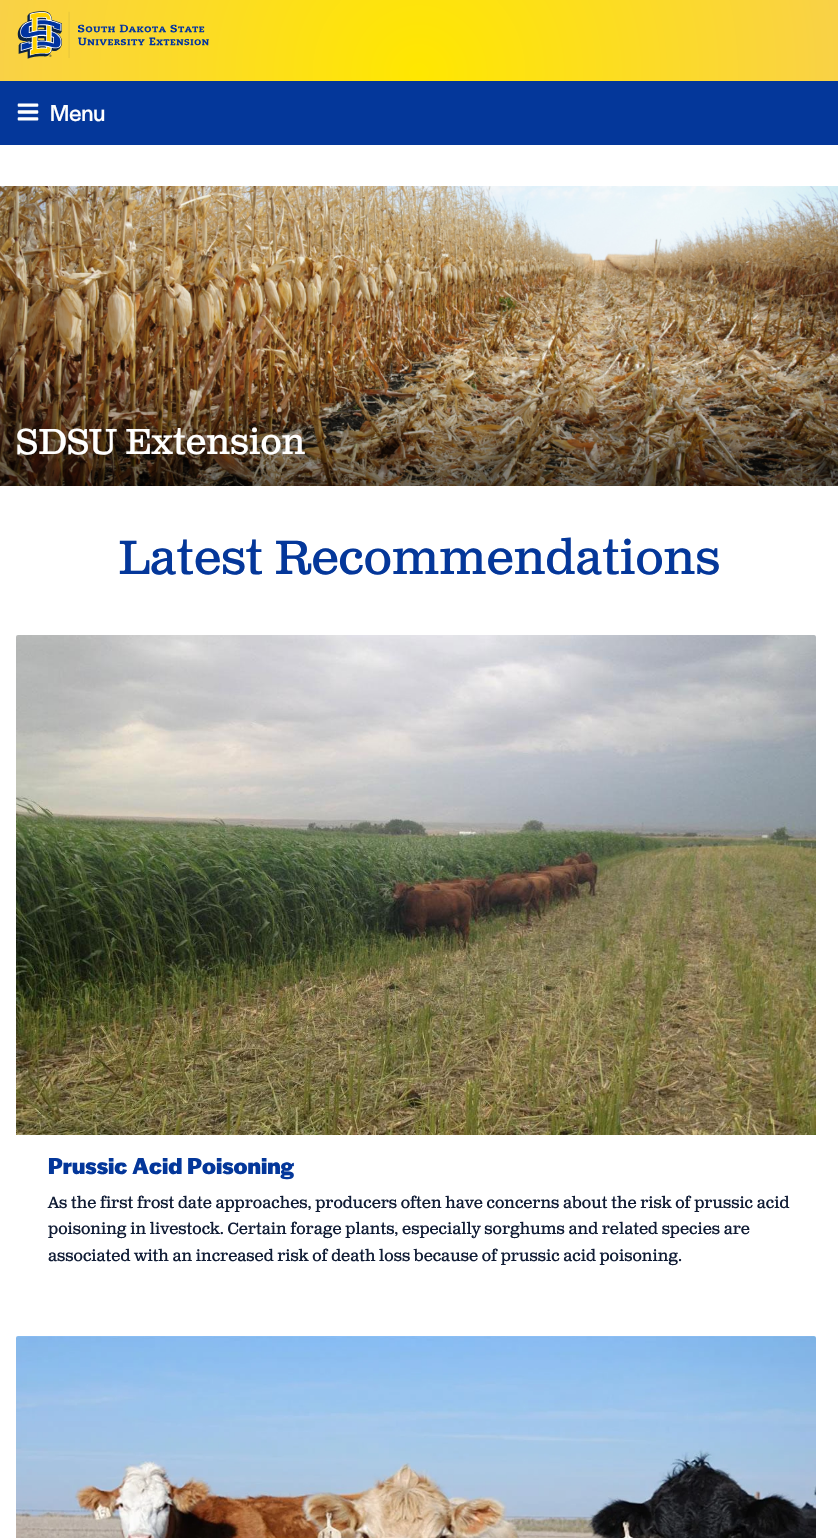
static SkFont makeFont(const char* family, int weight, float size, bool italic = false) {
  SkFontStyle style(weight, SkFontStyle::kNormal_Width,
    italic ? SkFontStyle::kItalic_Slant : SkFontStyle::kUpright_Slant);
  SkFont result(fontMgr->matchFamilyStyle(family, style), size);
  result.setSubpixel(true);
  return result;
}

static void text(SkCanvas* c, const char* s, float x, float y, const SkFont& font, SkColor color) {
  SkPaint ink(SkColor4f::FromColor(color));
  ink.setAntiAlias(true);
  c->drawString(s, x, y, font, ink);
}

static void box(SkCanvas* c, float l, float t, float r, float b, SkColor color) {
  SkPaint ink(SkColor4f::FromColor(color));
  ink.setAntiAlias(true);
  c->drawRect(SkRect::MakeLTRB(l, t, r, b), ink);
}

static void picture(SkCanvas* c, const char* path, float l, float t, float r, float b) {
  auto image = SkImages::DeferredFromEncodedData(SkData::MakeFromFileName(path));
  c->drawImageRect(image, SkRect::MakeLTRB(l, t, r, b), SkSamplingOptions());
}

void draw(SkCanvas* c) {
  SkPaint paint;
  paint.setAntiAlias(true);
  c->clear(0xffffffff);
  {
    const SkColor colors[] = {0xffffe700, 0xfff9d147};
    const float stops[] = {0, 1};
    paint.setShader(SkGradientShader::MakeRadial({419, 73}, 425, colors, stops, 2, SkTileMode::kClamp));
    paint.setAlpha(255);
  }
  c->drawRect(SkRect::MakeLTRB(0, 0, 838, 81), paint);
  picture(c, "img_01.png", 17, 11, 209, 59);
  box(c, 0, 81, 838, 145, 0xff04379a);
  picture(c, "img_02.png", 17, 103, 39, 121);
  SkFont face1 = makeFont("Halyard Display", 400, 24);
  text(c, "Menu", 50, 121, face1, 0xffffffff);
  picture(c, "img_03.png", 0, 186, 838, 486);
  SkFont face2 = makeFont("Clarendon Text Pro", 400, 36);
  text(c, "SDSU Extension", 16, 454, face2, 0xffffffff);
  SkFont face3 = makeFont("Clarendon Text Pro", 400, 48);
  text(c, "Latest Recommendations", 118, 574, face3, 0xff04379a);
  picture(c, "img_04.png", 16, 635, 816, 1135);
  SkFont face4 = makeFont("Halyard Display", 700, 24);
  text(c, "Prussic Acid Poisoning", 48, 1174, face4, 0xff04379a);
  SkFont face5 = makeFont("Clarendon Text Pro", 400, 16);
  text(c, "As the first frost date approaches, producers often have concerns about the risk of prussic acid", 48, 1208, face5, 0xff101c35);
  text(c, "poisoning in livestock. Certain forage plants, especially sorghums and related species are", 48, 1234, face5, 0xff101c35);
  text(c, "associated with an increased risk of death loss because of prussic acid poisoning.", 48, 1261, face5, 0xff101c35);
  picture(c, "img_05.png", 16, 1336, 816, 1538);
}
